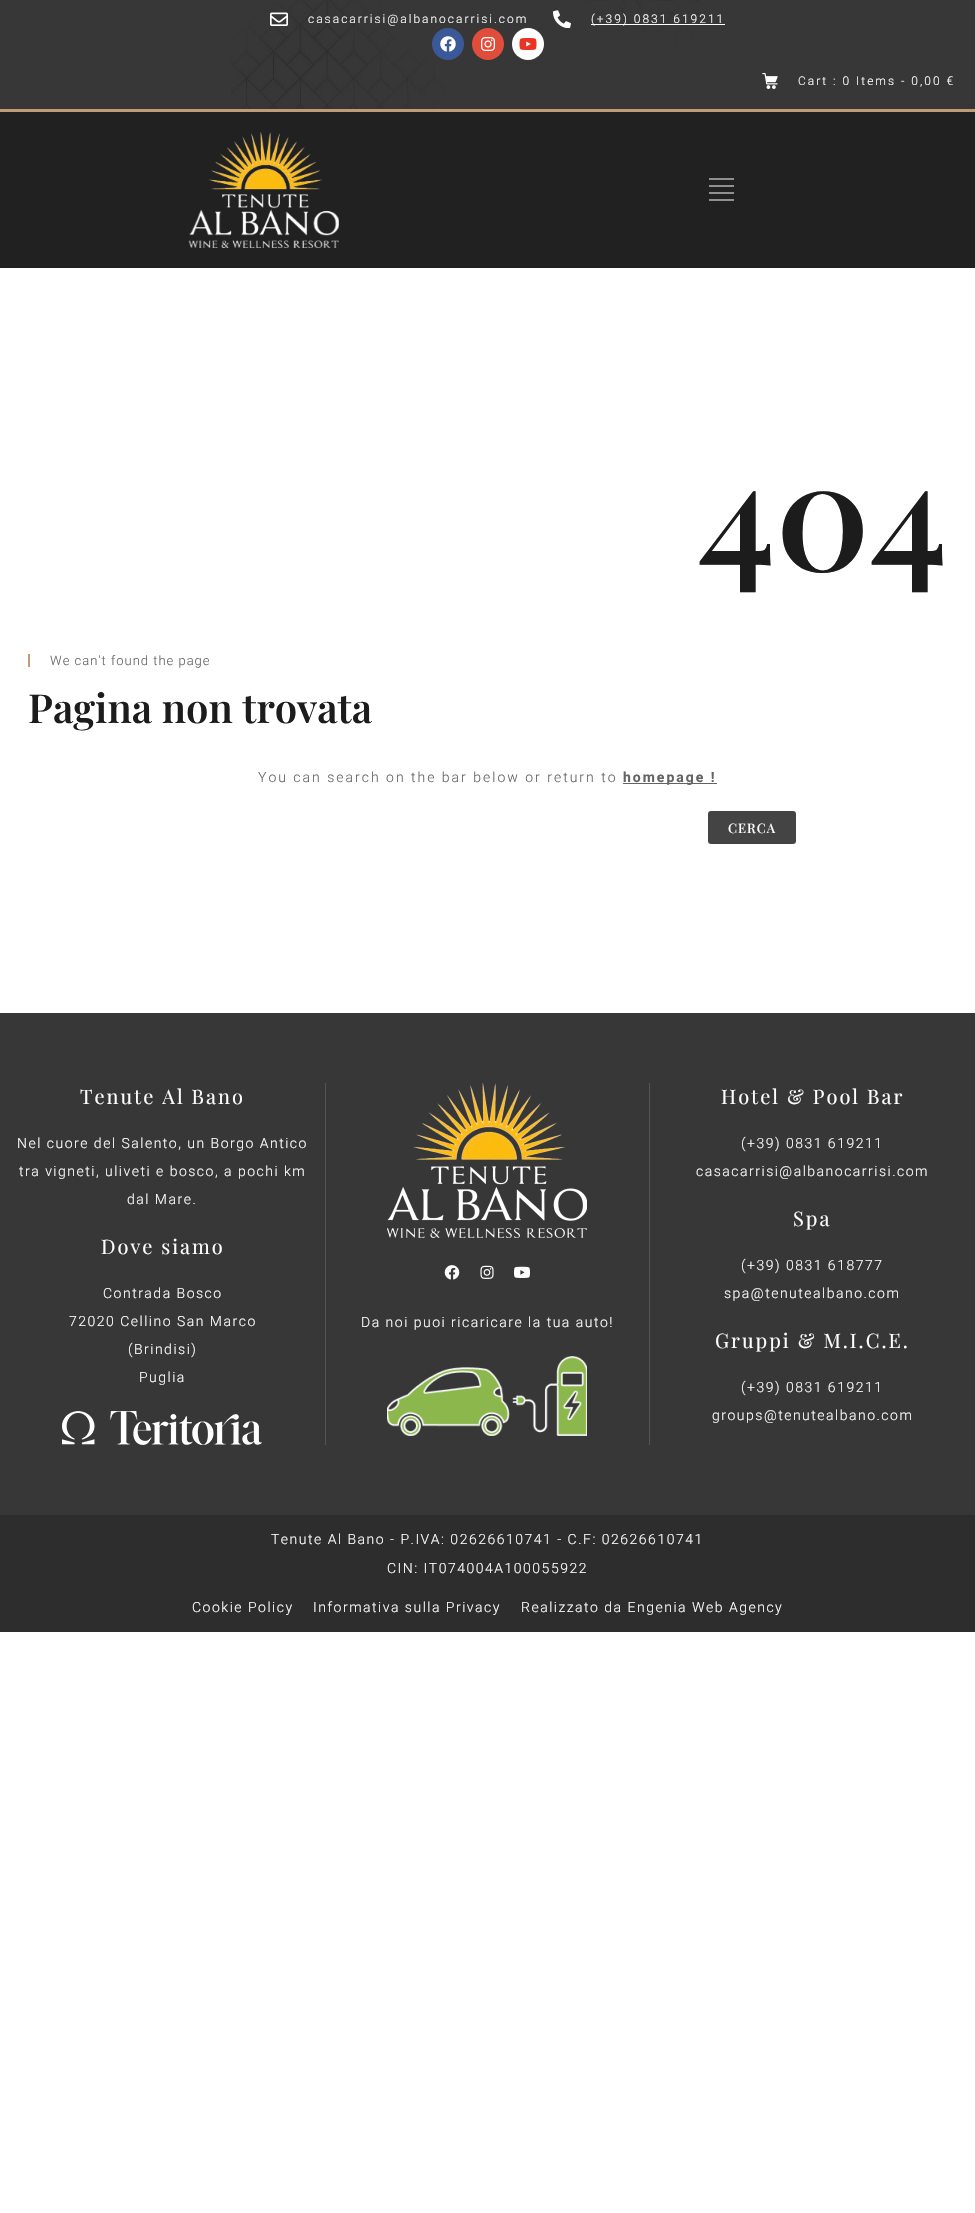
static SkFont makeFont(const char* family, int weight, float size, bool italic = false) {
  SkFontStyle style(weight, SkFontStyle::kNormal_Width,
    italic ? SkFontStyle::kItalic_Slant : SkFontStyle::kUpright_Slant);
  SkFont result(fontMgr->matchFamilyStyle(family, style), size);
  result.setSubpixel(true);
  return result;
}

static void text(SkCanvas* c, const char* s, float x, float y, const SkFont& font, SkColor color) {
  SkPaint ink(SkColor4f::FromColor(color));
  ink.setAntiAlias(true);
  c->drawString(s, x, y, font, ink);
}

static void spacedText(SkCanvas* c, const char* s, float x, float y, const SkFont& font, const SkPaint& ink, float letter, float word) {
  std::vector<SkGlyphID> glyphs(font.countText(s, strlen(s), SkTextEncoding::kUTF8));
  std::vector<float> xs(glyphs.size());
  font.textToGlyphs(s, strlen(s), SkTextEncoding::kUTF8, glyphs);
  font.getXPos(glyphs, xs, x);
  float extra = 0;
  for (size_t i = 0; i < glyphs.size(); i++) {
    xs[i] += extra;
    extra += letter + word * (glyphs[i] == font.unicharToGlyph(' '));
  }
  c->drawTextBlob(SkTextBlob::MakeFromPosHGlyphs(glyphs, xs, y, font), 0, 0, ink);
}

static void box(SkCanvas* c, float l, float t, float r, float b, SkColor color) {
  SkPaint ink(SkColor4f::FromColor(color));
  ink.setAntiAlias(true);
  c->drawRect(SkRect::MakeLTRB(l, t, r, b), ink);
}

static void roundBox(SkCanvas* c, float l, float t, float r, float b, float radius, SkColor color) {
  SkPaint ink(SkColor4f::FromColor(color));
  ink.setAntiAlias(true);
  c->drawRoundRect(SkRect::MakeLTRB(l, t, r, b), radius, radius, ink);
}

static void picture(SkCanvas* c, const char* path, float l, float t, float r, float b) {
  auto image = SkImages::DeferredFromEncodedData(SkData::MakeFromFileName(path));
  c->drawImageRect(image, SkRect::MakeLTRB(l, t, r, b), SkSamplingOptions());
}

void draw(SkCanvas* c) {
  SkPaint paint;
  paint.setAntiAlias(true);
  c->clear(0xffffffff);
  box(c, 0, 0, 975, 109, 0xff373737);
  picture(c, "img_01.png", 231, 0, 699, 109);
  picture(c, "img_02.png", 270, 12, 288, 26);
  SkFont face1 = makeFont("Roboto", 300, 12);
  paint.setColor(0xffffffff);
  spacedText(c, "casacarrisi@albanocarrisi.com", 308, 23, face1, paint, 2, 0);
  picture(c, "img_03.png", 553, 10, 571, 28);
  box(c, 591, 24, 725, 25, 0xffffffff);
  spacedText(c, "(+39) 0831 619211", 591, 23, face1, paint, 2, 0);
  paint.setColor(0xff3b5998);
  c->drawCircle(448, 44, 16, paint);
  picture(c, "img_04.png", 440, 36, 456, 52);
  paint.setColor(0xffe14d3b);
  c->drawCircle(488, 44, 16, paint);
  picture(c, "img_05.png", 481, 37, 495, 51);
  paint.setColor(0xffffffff);
  c->drawCircle(528, 44, 16, paint);
  picture(c, "img_06.png", 519, 38, 537, 50);
  picture(c, "img_07.png", 762, 73, 778, 89);
  spacedText(c, "Cart : 0 Items - 0,00 €", 798, 85, face1, paint, 2, 0);
  box(c, 0, 109, 975, 112, 0xffc19b77);
  box(c, 0, 112, 975, 268, 0xff212121);
  picture(c, "img_08.png", 188, 132, 339, 248);
  picture(c, "img_09.png", 709, 178, 734, 201);
  SkFont face2 = makeFont("Playfair Display", 600, 150);
  text(c, "404", 698, 571, face2, 0xff1c1c1c);
  box(c, 28, 654, 30, 667, 0xffc19b77);
  SkFont face3 = makeFont("Roboto", 300, 13);
  paint.setColor(0xff636363);
  spacedText(c, "We can't found the page", 50, 665, face3, paint, 1, 0);
  SkFont face4 = makeFont("Playfair Display", 600, 40);
  text(c, "Pagina non trovata", 28, 723, face4, 0xff1c1c1c);
  SkFont face5 = makeFont("Roboto", 300, 14);
  spacedText(c, "You can search on the bar below or return to", 258, 782, face5, paint, 2, 0);
  box(c, 623, 783, 717, 784, 0xff636363);
  SkFont face6 = makeFont("Roboto", 700, 14);
  spacedText(c, "homepage !", 623, 782, face6, paint, 2, 0);
  roundBox(c, 708, 811, 796, 844, 3, 0xff444444);
  SkFont face7 = makeFont("Playfair Display", 500, 13);
  paint.setColor(0xffffffff);
  spacedText(c, "CERCA", 728, 833, face7, paint, 1, 0);
  box(c, 0, 1013, 975, 1515, 0xff373737);
  SkFont face8 = makeFont("Playfair Display", 400, 20);
  spacedText(c, "Tenute Al Bano", 80, 1104, face8, paint, 2, 0);
  spacedText(c, "Nel cuore del Salento, un Borgo Antico", 17, 1148, face5, paint, 1.5f, 0);
  spacedText(c, "tra vigneti, uliveti e bosco, a pochi km", 19, 1176, face5, paint, 1.5f, 0);
  spacedText(c, "dal Mare.", 127, 1204, face5, paint, 1.5f, 0);
  spacedText(c, "Dove siamo", 101, 1254, face8, paint, 2, 0);
  spacedText(c, "Contrada Bosco", 103, 1298, face5, paint, 1.5f, 0);
  spacedText(c, "72020 Cellino San Marco", 69, 1326, face5, paint, 1.5f, 0);
  spacedText(c, "(Brindisi)", 128, 1354, face5, paint, 1.5f, 0);
  spacedText(c, "Puglia", 139, 1382, face5, paint, 1.5f, 0);
  picture(c, "img_10.png", 62, 1411, 262, 1445);
  box(c, 649, 1083, 650, 1445, 0xff555555);
  box(c, 325, 1083, 326, 1445, 0xff555555);
  picture(c, "img_11.png", 387, 1083, 587, 1238);
  picture(c, "img_12.png", 444, 1265, 460, 1280);
  picture(c, "img_13.png", 480, 1265, 494, 1279);
  picture(c, "img_14.png", 514, 1266, 530, 1278);
  spacedText(c, "Da noi puoi ricaricare la tua auto!", 361, 1327, face5, paint, 1.5f, 0);
  picture(c, "img_15.png", 387, 1356, 587, 1436);
  spacedText(c, "Hotel & Pool Bar", 721, 1104, face8, paint, 2, 0);
  spacedText(c, "(+39) 0831 619211", 741, 1148, face5, paint, 1.5f, 0);
  spacedText(c, "casacarrisi@albanocarrisi.com", 696, 1176, face5, paint, 1.5f, 0);
  spacedText(c, "Spa", 793, 1226, face8, paint, 2, 0);
  spacedText(c, "(+39) 0831 618777", 741, 1270, face5, paint, 1.5f, 0);
  spacedText(c, "spa@tenutealbano.com", 724, 1298, face5, paint, 1.5f, 0);
  spacedText(c, "Gruppi & M.I.C.E.", 715, 1348, face8, paint, 2, 0);
  spacedText(c, "(+39) 0831 619211", 741, 1392, face5, paint, 1.5f, 0);
  spacedText(c, "groups@tenutealbano.com", 712, 1420, face5, paint, 1.5f, 0);
  box(c, 0, 1515, 975, 1632, 0xff2d2d2d);
  spacedText(c, "Tenute Al Bano - P.IVA: 02626610741 - C.F: 02626610741", 271, 1544, face5, paint, 1.5f, 0);
  spacedText(c, "CIN: IT074004A100055922", 387, 1573, face5, paint, 1.5f, 0);
  spacedText(c, "Cookie Policy", 192, 1612, face5, paint, 1.5f, 0);
  spacedText(c, "Informativa sulla Privacy", 313, 1612, face5, paint, 1.5f, 0);
  spacedText(c, "Realizzato da Engenia Web Agency", 521, 1612, face5, paint, 1.5f, 0);
}
